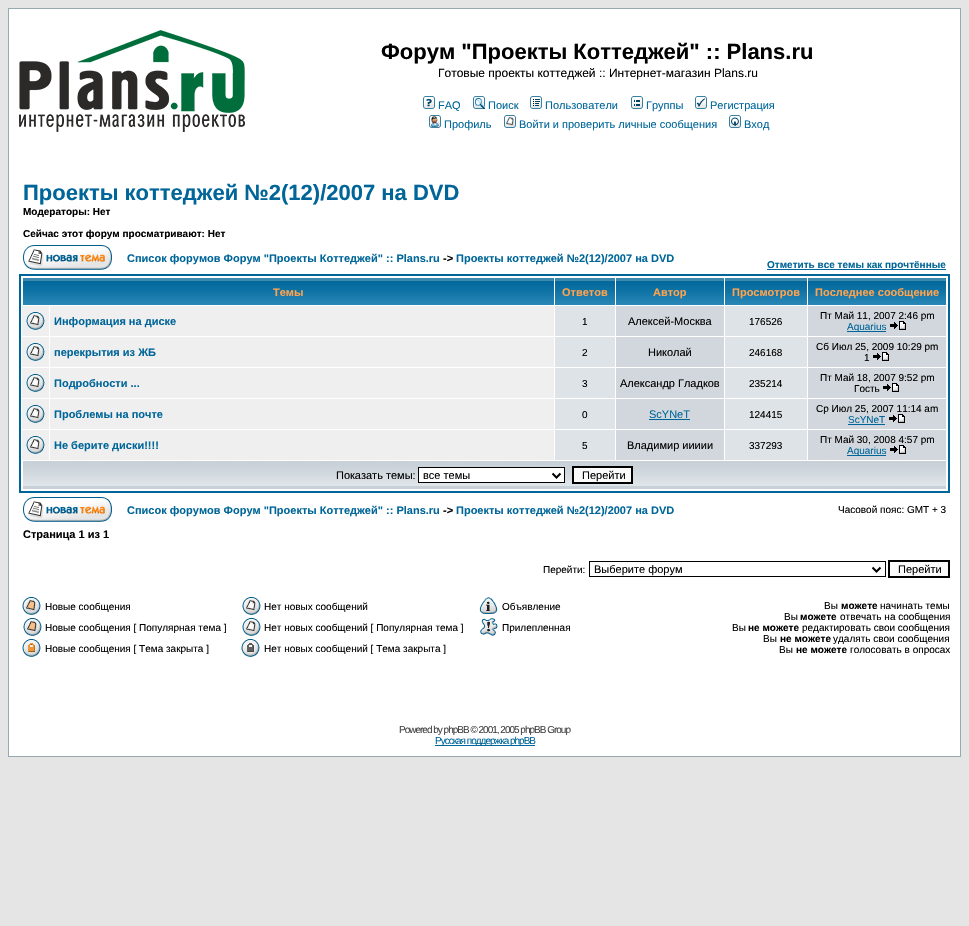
static SkFont makeFont(const char* family, int weight, float size, bool italic = false) {
  SkFontStyle style(weight, SkFontStyle::kNormal_Width,
    italic ? SkFontStyle::kItalic_Slant : SkFontStyle::kUpright_Slant);
  SkFont result(fontMgr->matchFamilyStyle(family, style), size);
  result.setSubpixel(true);
  return result;
}

static void text(SkCanvas* c, const char* s, float x, float y, const SkFont& font, SkColor color) {
  SkPaint ink(SkColor4f::FromColor(color));
  ink.setAntiAlias(true);
  c->drawString(s, x, y, font, ink);
}

static void spacedText(SkCanvas* c, const char* s, float x, float y, const SkFont& font, const SkPaint& ink, float letter, float word) {
  std::vector<SkGlyphID> glyphs(font.countText(s, strlen(s), SkTextEncoding::kUTF8));
  std::vector<float> xs(glyphs.size());
  font.textToGlyphs(s, strlen(s), SkTextEncoding::kUTF8, glyphs);
  font.getXPos(glyphs, xs, x);
  float extra = 0;
  for (size_t i = 0; i < glyphs.size(); i++) {
    xs[i] += extra;
    extra += letter + word * (glyphs[i] == font.unicharToGlyph(' '));
  }
  c->drawTextBlob(SkTextBlob::MakeFromPosHGlyphs(glyphs, xs, y, font), 0, 0, ink);
}

static void box(SkCanvas* c, float l, float t, float r, float b, SkColor color) {
  SkPaint ink(SkColor4f::FromColor(color));
  ink.setAntiAlias(true);
  c->drawRect(SkRect::MakeLTRB(l, t, r, b), ink);
}

static void picture(SkCanvas* c, const char* path, float l, float t, float r, float b) {
  auto image = SkImages::DeferredFromEncodedData(SkData::MakeFromFileName(path));
  c->drawImageRect(image, SkRect::MakeLTRB(l, t, r, b), SkSamplingOptions());
}

void draw(SkCanvas* c) {
  SkPaint paint;
  paint.setAntiAlias(true);
  c->clear(0xffe5e5e5);
  paint.setColor(0xffffffff);
  c->drawRect(SkRect::MakeLTRB(8.5f, 8.5f, 960.5f, 756.5f), paint);
  paint.setStyle(SkPaint::kStroke_Style);
  paint.setStrokeWidth(1);
  paint.setColor(0xff98aab1);
  c->drawRect(SkRect::MakeLTRB(8.5f, 8.5f, 960.5f, 756.5f), paint);
  picture(c, "img_01.png", 19, 30, 245, 132);
  SkFont face1 = makeFont("Liberation Sans", 700, 22);
  text(c, "Форум \"Проекты Коттеджей\" :: Plans.ru", 381, 59, face1, 0xff000000);
  SkFont face2 = makeFont("Liberation Sans", 400, 12);
  text(c, "Готовые проекты коттеджей :: Интернет-магазин Plans.ru", 438, 77, face2, 0xff000000);
  picture(c, "img_02.png", 423, 96, 435, 109);
  SkFont face3 = makeFont("Liberation Sans", 400, 11);
  text(c, "FAQ", 438, 109, face3, 0xff006699);
  picture(c, "img_03.png", 473, 96, 485, 109);
  text(c, "Поиск", 488, 109, face3, 0xff006699);
  picture(c, "img_04.png", 530, 96, 542, 109);
  text(c, "Пользователи", 545, 109, face3, 0xff006699);
  picture(c, "img_05.png", 631, 96, 643, 109);
  text(c, "Группы", 646, 109, face3, 0xff006699);
  picture(c, "img_06.png", 695, 96, 707, 109);
  text(c, "Регистрация", 710, 109, face3, 0xff006699);
  picture(c, "img_07.png", 429, 115, 441, 128);
  text(c, "Профиль", 444, 128, face3, 0xff006699);
  picture(c, "img_08.png", 504, 115, 516, 128);
  text(c, "Войти и проверить личные сообщения", 519, 128, face3, 0xff006699);
  picture(c, "img_09.png", 729, 115, 741, 128);
  text(c, "Вход", 744, 128, face3, 0xff006699);
  text(c, "Проекты коттеджей №2(12)/2007 на DVD", 23, 200, face1, 0xff006699);
  SkFont face4 = makeFont("Liberation Sans", 700, 10);
  text(c, "Модераторы: Нет", 23, 215, face4, 0xff000000);
  text(c, "Сейчас этот форум просматривают: Нет", 23, 237, face4, 0xff000000);
  picture(c, "img_10.png", 23, 245, 112, 270);
  SkFont face5 = makeFont("Liberation Sans", 700, 11);
  text(c, "Список форумов Форум \"Проекты Коттеджей\" :: Plans.ru", 127, 262, face5, 0xff006699);
  text(c, "->", 443, 262, face5, 0xff000000);
  text(c, "Проекты коттеджей №2(12)/2007 на DVD", 456, 262, face5, 0xff006699);
  box(c, 767, 269, 946, 270, 0xff006699);
  text(c, "Отметить все темы как прочтённые", 767, 268, face4, 0xff006699);
  paint.setStrokeWidth(2);
  paint.setColor(0xff006699);
  c->drawRect(SkRect::MakeLTRB(20, 275, 949, 492), paint);
  picture(c, "img_11.png", 23, 278, 554, 305);
  text(c, "Темы", 273, 296, face5, 0xffffa34f);
  picture(c, "img_12.png", 555, 278, 615, 305);
  text(c, "Ответов", 562, 296, face5, 0xffffa34f);
  picture(c, "img_13.png", 616, 278, 724, 305);
  text(c, "Автор", 653, 296, face5, 0xffffa34f);
  picture(c, "img_14.png", 725, 278, 807, 305);
  text(c, "Просмотров", 732, 296, face5, 0xffffa34f);
  picture(c, "img_15.png", 808, 278, 946, 305);
  text(c, "Последнее сообщение", 815, 296, face5, 0xffffa34f);
  box(c, 22, 306, 49, 336, 0xffefefef);
  picture(c, "img_16.png", 26, 312, 45, 330);
  box(c, 50, 306, 554, 336, 0xffefefef);
  text(c, "Информация на диске", 54, 325, face5, 0xff006699);
  box(c, 555, 306, 615, 336, 0xffdee3e7);
  SkFont face6 = makeFont("Liberation Sans", 400, 10);
  text(c, "1", 582, 325, face6, 0xff000000);
  box(c, 616, 306, 724, 336, 0xffd1d7dc);
  text(c, "Алексей-Москва", 628, 325, face3, 0xff000000);
  box(c, 725, 306, 807, 336, 0xffdee3e7);
  text(c, "176526", 749, 325, face6, 0xff000000);
  box(c, 808, 306, 946, 336, 0xffd1d7dc);
  text(c, "Пт Май 11, 2007 2:46 pm", 820, 319, face6, 0xff000000);
  box(c, 847, 331, 886, 332, 0xff006699);
  text(c, "Aquarius", 847, 330, face6, 0xff006699);
  picture(c, "img_17.png", 890, 321, 906, 330);
  box(c, 22, 337, 49, 367, 0xffefefef);
  picture(c, "img_16.png", 26, 343, 45, 361);
  box(c, 50, 337, 554, 367, 0xffefefef);
  text(c, "перекрытия из ЖБ", 54, 356, face5, 0xff006699);
  box(c, 555, 337, 615, 367, 0xffdee3e7);
  text(c, "2", 582, 356, face6, 0xff000000);
  box(c, 616, 337, 724, 367, 0xffd1d7dc);
  text(c, "Николай", 648, 356, face3, 0xff000000);
  box(c, 725, 337, 807, 367, 0xffdee3e7);
  text(c, "246168", 749, 356, face6, 0xff000000);
  box(c, 808, 337, 946, 367, 0xffd1d7dc);
  text(c, "Сб Июл 25, 2009 10:29 pm", 816, 350, face6, 0xff000000);
  text(c, "1", 864, 361, face6, 0xff000000);
  picture(c, "img_17.png", 873, 352, 889, 361);
  box(c, 22, 368, 49, 398, 0xffefefef);
  picture(c, "img_16.png", 26, 374, 45, 392);
  box(c, 50, 368, 554, 398, 0xffefefef);
  text(c, "Подробности ...", 54, 387, face5, 0xff006699);
  box(c, 555, 368, 615, 398, 0xffdee3e7);
  text(c, "3", 582, 387, face6, 0xff000000);
  box(c, 616, 368, 724, 398, 0xffd1d7dc);
  text(c, "Александр Гладков", 620, 387, face3, 0xff000000);
  box(c, 725, 368, 807, 398, 0xffdee3e7);
  text(c, "235214", 749, 387, face6, 0xff000000);
  box(c, 808, 368, 946, 398, 0xffd1d7dc);
  text(c, "Пт Май 18, 2007 9:52 pm", 820, 381, face6, 0xff000000);
  text(c, "Гость", 854, 392, face6, 0xff000000);
  picture(c, "img_17.png", 883, 383, 899, 392);
  box(c, 22, 399, 49, 429, 0xffefefef);
  picture(c, "img_16.png", 26, 405, 45, 423);
  box(c, 50, 399, 554, 429, 0xffefefef);
  text(c, "Проблемы на почте", 54, 418, face5, 0xff006699);
  box(c, 555, 399, 615, 429, 0xffdee3e7);
  text(c, "0", 582, 418, face6, 0xff000000);
  box(c, 616, 399, 724, 429, 0xffd1d7dc);
  text(c, "ScYNeT", 649, 418, face3, 0xff006699);
  box(c, 649, 419, 690, 420, 0xff006699);
  box(c, 725, 399, 807, 429, 0xffdee3e7);
  text(c, "124415", 749, 418, face6, 0xff000000);
  box(c, 808, 399, 946, 429, 0xffd1d7dc);
  text(c, "Ср Июл 25, 2007 11:14 am", 816, 412, face6, 0xff000000);
  text(c, "ScYNeT", 848, 423, face6, 0xff006699);
  box(c, 848, 424, 885, 425, 0xff006699);
  picture(c, "img_17.png", 889, 414, 905, 423);
  box(c, 22, 430, 49, 460, 0xffefefef);
  picture(c, "img_16.png", 26, 436, 45, 454);
  box(c, 50, 430, 554, 460, 0xffefefef);
  text(c, "Не берите диски!!!!", 54, 449, face5, 0xff006699);
  box(c, 555, 430, 615, 460, 0xffdee3e7);
  text(c, "5", 582, 449, face6, 0xff000000);
  box(c, 616, 430, 724, 460, 0xffd1d7dc);
  text(c, "Владимир иииии", 627, 449, face3, 0xff000000);
  box(c, 725, 430, 807, 460, 0xffdee3e7);
  text(c, "337293", 749, 449, face6, 0xff000000);
  box(c, 808, 430, 946, 460, 0xffd1d7dc);
  text(c, "Пт Май 30, 2008 4:57 pm", 820, 443, face6, 0xff000000);
  box(c, 847, 455, 886, 456, 0xff006699);
  text(c, "Aquarius", 847, 454, face6, 0xff006699);
  picture(c, "img_17.png", 890, 445, 906, 454);
  picture(c, "img_18.png", 23, 461, 946, 489);
  text(c, "Показать темы:", 336, 479, face3, 0xff000000);
  paint.setStyle(SkPaint::kFill_Style);
  paint.setColor(0xffffffff);
  c->drawRect(SkRect::MakeLTRB(418.5f, 467.5f, 564.5f, 482.5f), paint);
  paint.setStyle(SkPaint::kStroke_Style);
  paint.setStrokeWidth(1);
  paint.setColor(0xff000000);
  c->drawRect(SkRect::MakeLTRB(418.5f, 467.5f, 564.5f, 482.5f), paint);
  paint.setStrokeWidth(2);
  c->drawPath(SkPathBuilder().moveTo(552.5f, 473.5f).lineTo(556.5f, 477.5f).lineTo(560.5f, 473.5f).detach(), paint);
  text(c, "все темы", 423, 479, face3, 0xff000000);
  paint.setStyle(SkPaint::kFill_Style);
  paint.setColor(0xfffafafa);
  c->drawRect(SkRect::MakeLTRB(573, 467, 632, 483), paint);
  paint.setStyle(SkPaint::kStroke_Style);
  paint.setColor(0xff000000);
  c->drawRect(SkRect::MakeLTRB(573, 467, 632, 483), paint);
  text(c, "Перейти", 582, 479, face3, 0xff000000);
  picture(c, "img_10.png", 23, 497, 112, 522);
  text(c, "Список форумов Форум \"Проекты Коттеджей\" :: Plans.ru", 127, 514, face5, 0xff006699);
  text(c, "->", 443, 514, face5, 0xff000000);
  text(c, "Проекты коттеджей №2(12)/2007 на DVD", 456, 514, face5, 0xff006699);
  text(c, "Часовой пояс: GMT + 3", 838, 513, face6, 0xff000000);
  text(c, "Страница 1 из 1", 23, 538, face5, 0xff000000);
  text(c, "Перейти:", 543, 573, face6, 0xff000000);
  paint.setStrokeWidth(1);
  c->drawRect(SkRect::MakeLTRB(589.5f, 561.5f, 885.5f, 576.5f), paint);
  paint.setStrokeWidth(2);
  c->drawPath(SkPathBuilder().moveTo(872.5f, 567.5f).lineTo(876.5f, 571.5f).lineTo(880.5f, 567.5f).detach(), paint);
  text(c, "Выберите форум", 594, 573, face3, 0xff000000);
  paint.setStyle(SkPaint::kFill_Style);
  paint.setColor(0xfffafafa);
  c->drawRect(SkRect::MakeLTRB(889, 561, 949, 577), paint);
  paint.setStyle(SkPaint::kStroke_Style);
  paint.setColor(0xff000000);
  c->drawRect(SkRect::MakeLTRB(889, 561, 949, 577), paint);
  text(c, "Перейти", 898, 573, face3, 0xff000000);
  picture(c, "img_19.png", 22, 597, 41, 615);
  text(c, "Новые сообщения", 45, 610, face6, 0xff000000);
  picture(c, "img_20.png", 242, 597, 261, 615);
  text(c, "Нет новых сообщений", 264, 610, face6, 0xff000000);
  picture(c, "img_21.png", 479, 597, 498, 614);
  text(c, "Объявление", 502, 610, face6, 0xff000000);
  picture(c, "img_22.png", 23, 618, 42, 636);
  text(c, "Новые сообщения [ Популярная тема ]", 45, 631, face6, 0xff000000);
  picture(c, "img_23.png", 242, 618, 261, 636);
  text(c, "Нет новых сообщений [ Популярная тема ]", 264, 631, face6, 0xff000000);
  picture(c, "img_24.png", 480, 618, 498, 636);
  text(c, "Прилепленная", 502, 631, face6, 0xff000000);
  picture(c, "img_25.png", 22, 639, 41, 657);
  text(c, "Новые сообщения [ Тема закрыта ]", 45, 652, face6, 0xff000000);
  picture(c, "img_26.png", 241, 639, 260, 657);
  text(c, "Нет новых сообщений [ Тема закрыта ]", 264, 652, face6, 0xff000000);
  text(c, "Вы", 824, 609, face6, 0xff000000);
  text(c, "можете", 841, 609, face4, 0xff000000);
  text(c, "начинать темы", 880, 609, face6, 0xff000000);
  text(c, "Вы", 784, 620, face6, 0xff000000);
  text(c, "можете", 800, 620, face4, 0xff000000);
  text(c, "отвечать на сообщения", 840, 620, face6, 0xff000000);
  text(c, "Вы", 732, 631, face6, 0xff000000);
  text(c, "не можете", 748, 631, face4, 0xff000000);
  text(c, "редактировать свои сообщения", 802, 631, face6, 0xff000000);
  text(c, "Вы", 763, 642, face6, 0xff000000);
  text(c, "не можете", 780, 642, face4, 0xff000000);
  text(c, "удалять свои сообщения", 833, 642, face6, 0xff000000);
  text(c, "Вы", 779, 653, face6, 0xff000000);
  text(c, "не можете", 796, 653, face4, 0xff000000);
  text(c, "голосовать в опросах", 850, 653, face6, 0xff000000);
  paint.setStyle(SkPaint::kFill_Style);
  paint.setColor(0xff444444);
  spacedText(c, "Powered by phpBB © 2001, 2005 phpBB Group", 399, 733, face6, paint, -1, 0);
  box(c, 435, 745, 535, 746, 0xff006699);
  paint.setColor(0xff006699);
  spacedText(c, "Русская поддержка phpBB", 435, 744, face6, paint, -1, 0);
}
